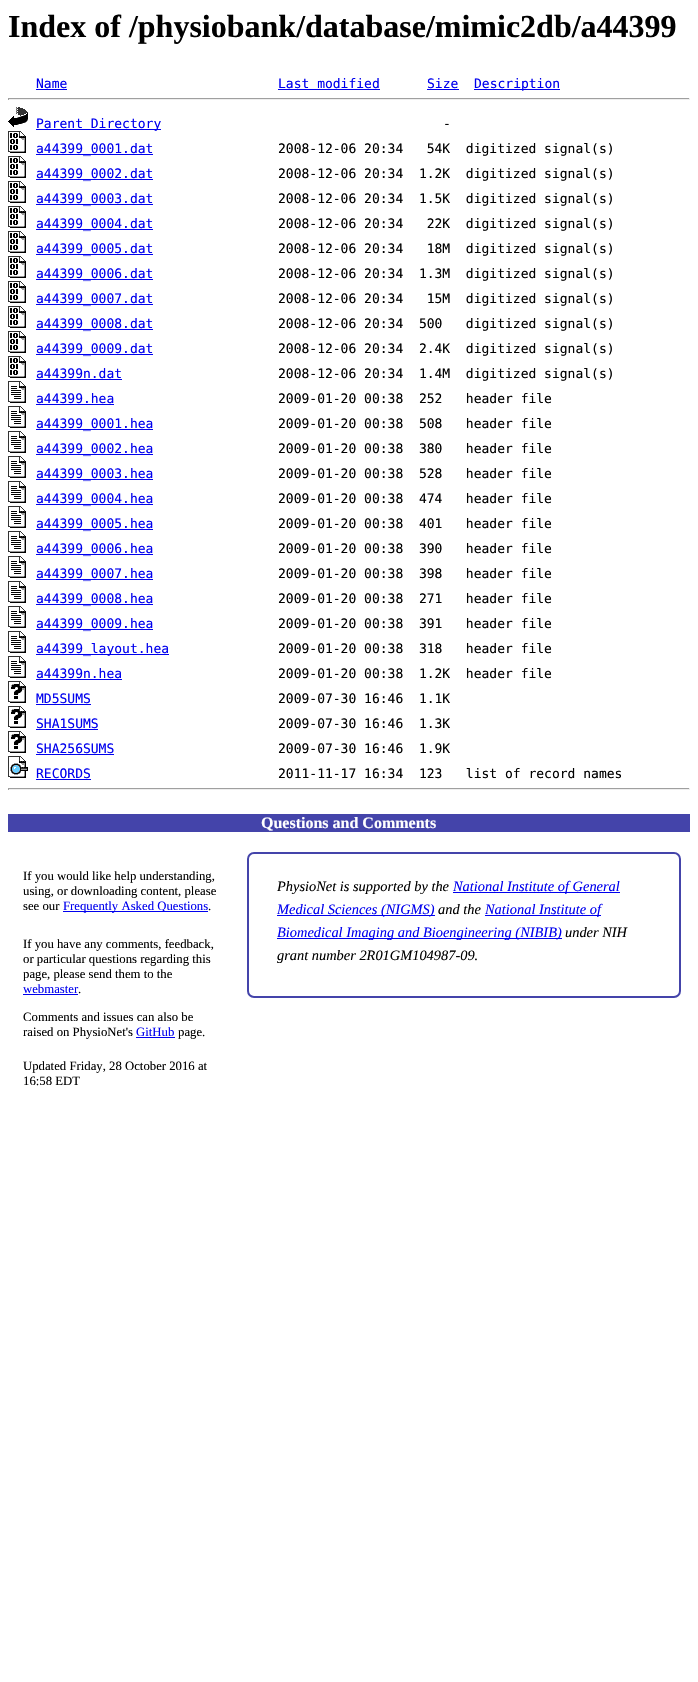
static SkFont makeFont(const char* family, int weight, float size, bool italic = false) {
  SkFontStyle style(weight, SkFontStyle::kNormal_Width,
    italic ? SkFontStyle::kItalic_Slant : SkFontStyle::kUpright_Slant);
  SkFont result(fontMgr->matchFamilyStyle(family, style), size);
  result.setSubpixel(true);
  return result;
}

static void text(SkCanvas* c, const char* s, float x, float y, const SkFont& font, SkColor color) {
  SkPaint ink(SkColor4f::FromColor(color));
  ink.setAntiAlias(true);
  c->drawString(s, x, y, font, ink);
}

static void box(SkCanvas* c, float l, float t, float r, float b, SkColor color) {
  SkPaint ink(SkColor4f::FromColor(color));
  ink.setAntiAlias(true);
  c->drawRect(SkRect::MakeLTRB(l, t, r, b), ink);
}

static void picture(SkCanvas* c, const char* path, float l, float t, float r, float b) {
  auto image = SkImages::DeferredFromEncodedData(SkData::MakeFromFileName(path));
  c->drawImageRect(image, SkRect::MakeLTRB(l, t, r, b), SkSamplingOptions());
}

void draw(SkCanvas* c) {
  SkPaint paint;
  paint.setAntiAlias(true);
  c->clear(0xffffffff);
  SkFont face1 = makeFont("Liberation Serif", 700, 32);
  text(c, "Index of /physiobank/database/mimic2db/a44399", 8, 37, face1, 0xff000000);
  SkFont face2 = makeFont("DejaVu Sans Mono", 400, 13);
  text(c, "Name", 36, 88, face2, 0xff0000ee);
  box(c, 36, 89, 67, 90, 0xff0000ee);
  text(c, "Last modified", 278, 88, face2, 0xff0000ee);
  box(c, 278, 89, 380, 90, 0xff0000ee);
  text(c, "Size", 427, 88, face2, 0xff0000ee);
  box(c, 427, 89, 459, 90, 0xff0000ee);
  box(c, 474, 89, 560, 90, 0xff0000ee);
  text(c, "Description", 474, 88, face2, 0xff0000ee);
  box(c, 8, 98, 690, 99, 0xff9f9f9f);
  box(c, 689, 98, 690, 100, 0xffeeeeee);
  box(c, 8, 99, 690, 100, 0xffeeeeee);
  box(c, 8, 98, 9, 100, 0xff9f9f9f);
  picture(c, "img_01.png", 8, 107, 28, 127);
  box(c, 36, 129, 161, 130, 0xff0000ee);
  text(c, "Parent Directory", 36, 128, face2, 0xff0000ee);
  text(c, "-", 443, 128, face2, 0xff000000);
  picture(c, "img_02.png", 8, 131, 26, 153);
  box(c, 36, 154, 153, 155, 0xff0000ee);
  text(c, "a44399_0001.dat", 36, 153, face2, 0xff0000ee);
  text(c, "2008-12-06 20:34   54K  digitized signal(s)", 278, 153, face2, 0xff000000);
  picture(c, "img_02.png", 8, 156, 26, 178);
  box(c, 36, 179, 153, 180, 0xff0000ee);
  text(c, "a44399_0002.dat", 36, 178, face2, 0xff0000ee);
  text(c, "2008-12-06 20:34  1.2K  digitized signal(s)", 278, 178, face2, 0xff000000);
  picture(c, "img_02.png", 8, 181, 26, 203);
  box(c, 36, 204, 153, 205, 0xff0000ee);
  text(c, "a44399_0003.dat", 36, 203, face2, 0xff0000ee);
  text(c, "2008-12-06 20:34  1.5K  digitized signal(s)", 278, 203, face2, 0xff000000);
  picture(c, "img_02.png", 8, 206, 26, 228);
  box(c, 36, 229, 153, 230, 0xff0000ee);
  text(c, "a44399_0004.dat", 36, 228, face2, 0xff0000ee);
  text(c, "2008-12-06 20:34   22K  digitized signal(s)", 278, 228, face2, 0xff000000);
  picture(c, "img_02.png", 8, 231, 26, 253);
  box(c, 36, 254, 153, 255, 0xff0000ee);
  text(c, "a44399_0005.dat", 36, 253, face2, 0xff0000ee);
  text(c, "2008-12-06 20:34   18M  digitized signal(s)", 278, 253, face2, 0xff000000);
  picture(c, "img_02.png", 8, 256, 26, 278);
  box(c, 36, 279, 153, 280, 0xff0000ee);
  text(c, "a44399_0006.dat", 36, 278, face2, 0xff0000ee);
  text(c, "2008-12-06 20:34  1.3M  digitized signal(s)", 278, 278, face2, 0xff000000);
  picture(c, "img_02.png", 8, 281, 26, 303);
  box(c, 36, 304, 153, 305, 0xff0000ee);
  text(c, "a44399_0007.dat", 36, 303, face2, 0xff0000ee);
  text(c, "2008-12-06 20:34   15M  digitized signal(s)", 278, 303, face2, 0xff000000);
  picture(c, "img_02.png", 8, 306, 26, 328);
  box(c, 36, 329, 153, 330, 0xff0000ee);
  text(c, "a44399_0008.dat", 36, 328, face2, 0xff0000ee);
  text(c, "2008-12-06 20:34  500   digitized signal(s)", 278, 328, face2, 0xff000000);
  picture(c, "img_02.png", 8, 331, 26, 353);
  box(c, 36, 354, 153, 355, 0xff0000ee);
  text(c, "a44399_0009.dat", 36, 353, face2, 0xff0000ee);
  text(c, "2008-12-06 20:34  2.4K  digitized signal(s)", 278, 353, face2, 0xff000000);
  picture(c, "img_02.png", 8, 356, 26, 378);
  text(c, "a44399n.dat", 36, 378, face2, 0xff0000ee);
  box(c, 36, 379, 122, 380, 0xff0000ee);
  text(c, "2008-12-06 20:34  1.4M  digitized signal(s)", 278, 378, face2, 0xff000000);
  picture(c, "img_03.png", 8, 381, 26, 403);
  text(c, "a44399.hea", 36, 403, face2, 0xff0000ee);
  box(c, 36, 404, 114, 405, 0xff0000ee);
  text(c, "2009-01-20 00:38  252   header file", 278, 403, face2, 0xff000000);
  picture(c, "img_03.png", 8, 406, 26, 428);
  box(c, 36, 429, 153, 430, 0xff0000ee);
  text(c, "a44399_0001.hea", 36, 428, face2, 0xff0000ee);
  text(c, "2009-01-20 00:38  508   header file", 278, 428, face2, 0xff000000);
  picture(c, "img_03.png", 8, 431, 26, 453);
  box(c, 36, 454, 153, 455, 0xff0000ee);
  text(c, "a44399_0002.hea", 36, 453, face2, 0xff0000ee);
  text(c, "2009-01-20 00:38  380   header file", 278, 453, face2, 0xff000000);
  picture(c, "img_03.png", 8, 456, 26, 478);
  box(c, 36, 479, 153, 480, 0xff0000ee);
  text(c, "a44399_0003.hea", 36, 478, face2, 0xff0000ee);
  text(c, "2009-01-20 00:38  528   header file", 278, 478, face2, 0xff000000);
  picture(c, "img_03.png", 8, 481, 26, 503);
  box(c, 36, 504, 153, 505, 0xff0000ee);
  text(c, "a44399_0004.hea", 36, 503, face2, 0xff0000ee);
  text(c, "2009-01-20 00:38  474   header file", 278, 503, face2, 0xff000000);
  picture(c, "img_03.png", 8, 506, 26, 528);
  box(c, 36, 529, 153, 530, 0xff0000ee);
  text(c, "a44399_0005.hea", 36, 528, face2, 0xff0000ee);
  text(c, "2009-01-20 00:38  401   header file", 278, 528, face2, 0xff000000);
  picture(c, "img_03.png", 8, 531, 26, 553);
  box(c, 36, 554, 153, 555, 0xff0000ee);
  text(c, "a44399_0006.hea", 36, 553, face2, 0xff0000ee);
  text(c, "2009-01-20 00:38  390   header file", 278, 553, face2, 0xff000000);
  picture(c, "img_03.png", 8, 556, 26, 578);
  box(c, 36, 579, 153, 580, 0xff0000ee);
  text(c, "a44399_0007.hea", 36, 578, face2, 0xff0000ee);
  text(c, "2009-01-20 00:38  398   header file", 278, 578, face2, 0xff000000);
  picture(c, "img_03.png", 8, 581, 26, 603);
  box(c, 36, 604, 153, 605, 0xff0000ee);
  text(c, "a44399_0008.hea", 36, 603, face2, 0xff0000ee);
  text(c, "2009-01-20 00:38  271   header file", 278, 603, face2, 0xff000000);
  picture(c, "img_03.png", 8, 606, 26, 628);
  box(c, 36, 629, 153, 630, 0xff0000ee);
  text(c, "a44399_0009.hea", 36, 628, face2, 0xff0000ee);
  text(c, "2009-01-20 00:38  391   header file", 278, 628, face2, 0xff000000);
  picture(c, "img_03.png", 8, 631, 26, 653);
  box(c, 36, 654, 169, 655, 0xff0000ee);
  text(c, "a44399_layout.hea", 36, 653, face2, 0xff0000ee);
  text(c, "2009-01-20 00:38  318   header file", 278, 653, face2, 0xff000000);
  picture(c, "img_03.png", 8, 656, 26, 678);
  text(c, "a44399n.hea", 36, 678, face2, 0xff0000ee);
  box(c, 36, 679, 122, 680, 0xff0000ee);
  text(c, "2009-01-20 00:38  1.2K  header file", 278, 678, face2, 0xff000000);
  picture(c, "img_04.png", 8, 681, 26, 703);
  text(c, "MD5SUMS", 36, 703, face2, 0xff0000ee);
  box(c, 36, 704, 91, 705, 0xff0000ee);
  text(c, "2009-07-30 16:46  1.1K", 278, 703, face2, 0xff000000);
  picture(c, "img_04.png", 8, 706, 26, 728);
  text(c, "SHA1SUMS", 36, 728, face2, 0xff0000ee);
  box(c, 36, 729, 98, 730, 0xff0000ee);
  text(c, "2009-07-30 16:46  1.3K", 278, 728, face2, 0xff000000);
  picture(c, "img_04.png", 8, 731, 26, 753);
  text(c, "SHA256SUMS", 36, 753, face2, 0xff0000ee);
  box(c, 36, 754, 114, 755, 0xff0000ee);
  text(c, "2009-07-30 16:46  1.9K", 278, 753, face2, 0xff000000);
  picture(c, "img_05.png", 8, 756, 28, 778);
  text(c, "RECORDS", 36, 778, face2, 0xff0000ee);
  box(c, 36, 779, 91, 780, 0xff0000ee);
  text(c, "2011-11-17 16:34  123   list of record names", 278, 778, face2, 0xff000000);
  box(c, 8, 788, 690, 789, 0xff9f9f9f);
  box(c, 689, 788, 690, 790, 0xffeeeeee);
  box(c, 8, 789, 690, 790, 0xffeeeeee);
  box(c, 8, 788, 9, 790, 0xff9f9f9f);
  box(c, 8, 814, 690, 832, 0xff4444aa);
  SkFont face3 = makeFont("Liberation Serif", 700, 16);
  text(c, "Questions and Comments", 261, 828, face3, 0xffffffff);
  SkFont face4 = makeFont("Liberation Serif", 400, 12.75f);
  text(c, "If you would like help understanding,", 23, 880, face4, 0xff000000);
  text(c, "using, or downloading content, please", 23, 895, face4, 0xff000000);
  text(c, "see our", 23, 910, face4, 0xff000000);
  box(c, 63, 911, 208, 912, 0xff0000ee);
  text(c, "Frequently Asked Questions", 63, 910, face4, 0xff0000ee);
  text(c, ".", 208, 910, face4, 0xff000000);
  text(c, "If you have any comments, feedback,", 23, 948, face4, 0xff000000);
  text(c, "or particular questions regarding this", 23, 963, face4, 0xff000000);
  text(c, "page, please send them to the", 23, 978, face4, 0xff000000);
  text(c, "webmaster", 23, 993, face4, 0xff0000ee);
  box(c, 23, 994, 78, 995, 0xff0000ee);
  text(c, ".", 78, 993, face4, 0xff000000);
  text(c, "Comments and issues can also be", 23, 1021, face4, 0xff000000);
  text(c, "raised on PhysioNet's", 23, 1036, face4, 0xff000000);
  text(c, "GitHub", 136, 1036, face4, 0xff0000ee);
  box(c, 136, 1037, 175, 1038, 0xff0000ee);
  text(c, "page.", 178, 1036, face4, 0xff000000);
  text(c, "Updated Friday, 28 October 2016 at", 23, 1070, face4, 0xff000000);
  text(c, "16:58 EDT", 23, 1085, face4, 0xff000000);
  paint.setStyle(SkPaint::kStroke_Style);
  paint.setStrokeWidth(2);
  paint.setColor(0xff4444aa);
  c->drawRoundRect(SkRect::MakeLTRB(248, 853, 680, 997), 6, 6, paint);
  SkFont face5 = makeFont("Liberation Serif", 400, 14.4f, true);
  text(c, "PhysioNet is supported by the", 277, 891, face5, 0xff000000);
  box(c, 453, 892, 620, 893, 0xff0000ee);
  text(c, "National Institute of General", 453, 891, face5, 0xff0000ee);
  box(c, 277, 915, 435, 916, 0xff0000ee);
  text(c, "Medical Sciences (NIGMS)", 277, 914, face5, 0xff0000ee);
  text(c, "and the", 438, 914, face5, 0xff000000);
  box(c, 485, 915, 601, 916, 0xff0000ee);
  text(c, "National Institute of", 485, 914, face5, 0xff0000ee);
  box(c, 277, 938, 562, 939, 0xff0000ee);
  text(c, "Biomedical Imaging and Bioengineering (NIBIB)", 277, 937, face5, 0xff0000ee);
  text(c, "under NIH", 565, 937, face5, 0xff000000);
  text(c, "grant number 2R01GM104987-09.", 277, 960, face5, 0xff000000);
}
